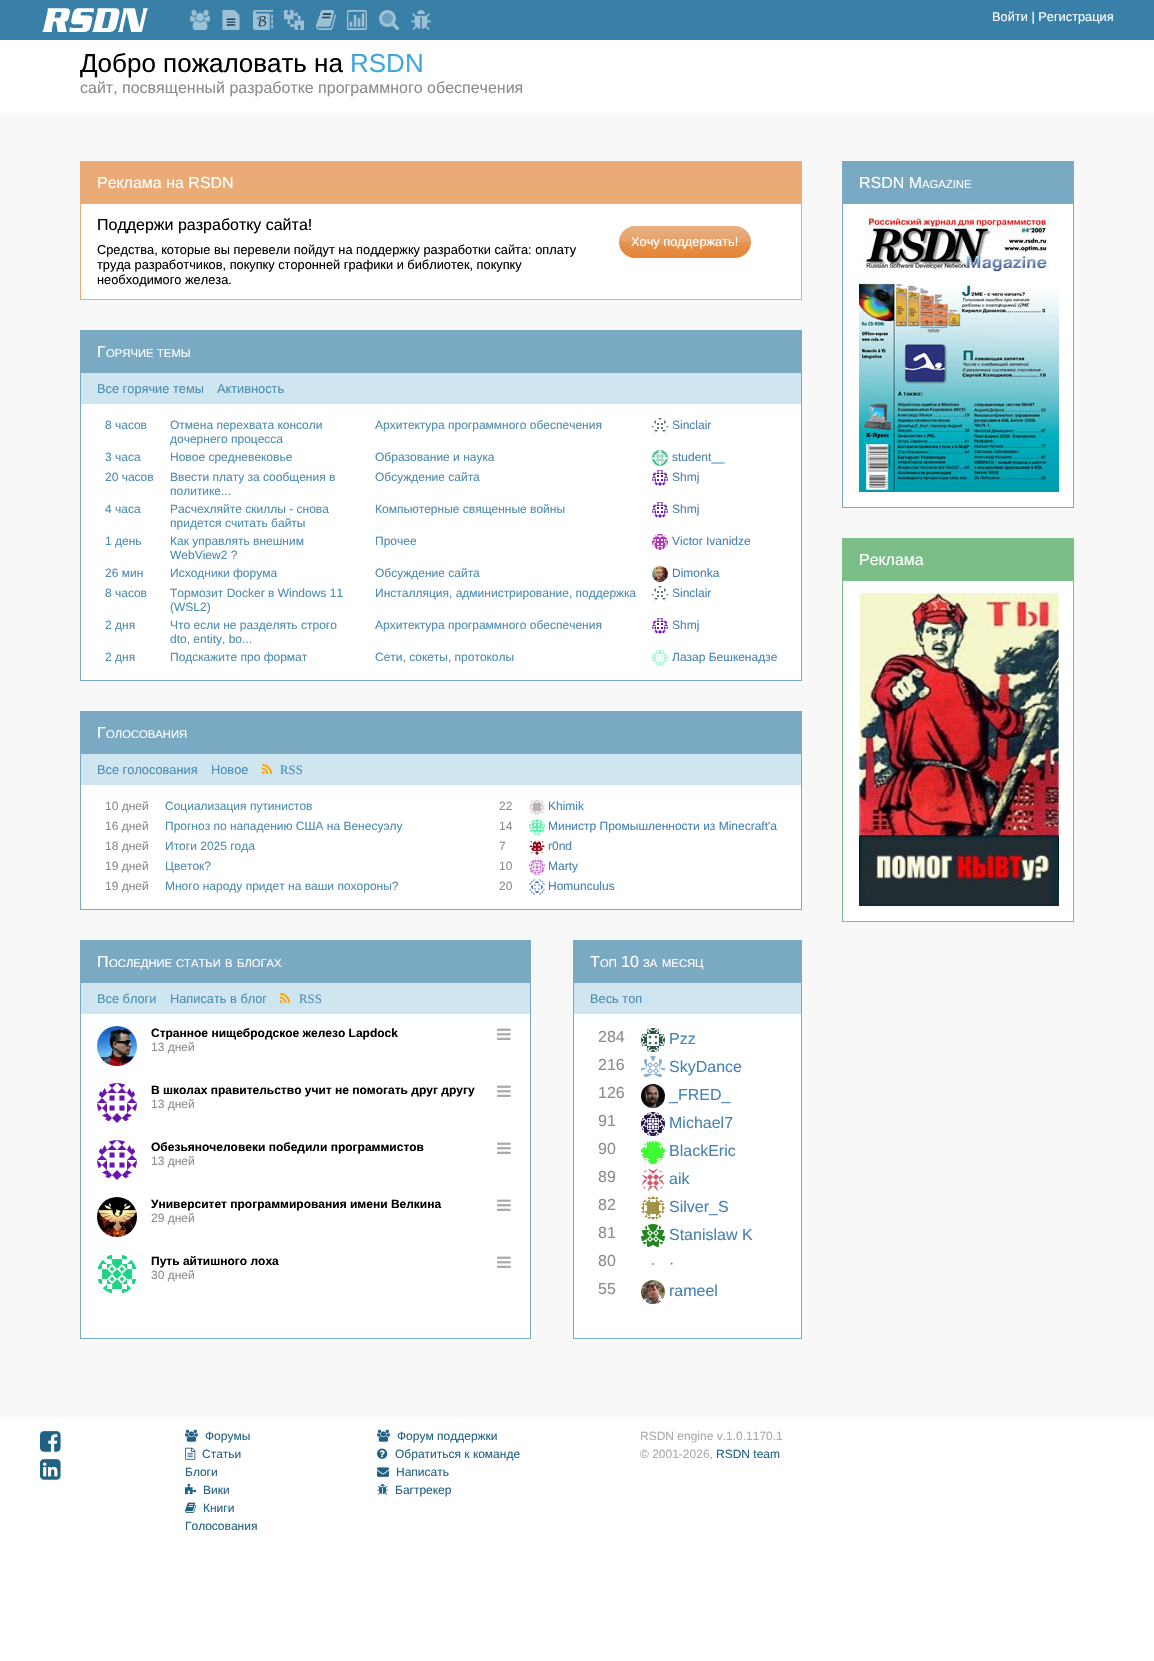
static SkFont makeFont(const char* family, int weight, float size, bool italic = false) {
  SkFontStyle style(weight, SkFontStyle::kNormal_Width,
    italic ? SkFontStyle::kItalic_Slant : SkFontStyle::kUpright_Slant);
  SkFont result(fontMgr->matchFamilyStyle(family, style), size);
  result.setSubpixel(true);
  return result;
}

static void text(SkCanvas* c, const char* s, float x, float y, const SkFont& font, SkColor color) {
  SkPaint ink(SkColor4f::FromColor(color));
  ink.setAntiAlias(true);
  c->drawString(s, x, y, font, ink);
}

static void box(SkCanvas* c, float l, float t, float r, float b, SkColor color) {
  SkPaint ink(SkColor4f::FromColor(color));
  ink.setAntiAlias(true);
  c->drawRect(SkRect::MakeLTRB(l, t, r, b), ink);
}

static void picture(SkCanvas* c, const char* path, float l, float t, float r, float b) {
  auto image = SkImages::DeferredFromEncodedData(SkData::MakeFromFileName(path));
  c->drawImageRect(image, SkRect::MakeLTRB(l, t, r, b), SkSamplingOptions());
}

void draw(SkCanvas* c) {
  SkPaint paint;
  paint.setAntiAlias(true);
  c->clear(0xffffffff);
  box(c, 0, 0, 1154, 40, 0xff3980a8);
  picture(c, "img_01.png", 42, 8, 148, 32);
  picture(c, "img_02.png", 190, 10, 210, 30);
  picture(c, "img_03.png", 222, 10, 240, 30);
  picture(c, "img_04.png", 253, 10, 273, 30);
  picture(c, "img_05.png", 284, 10, 304, 30);
  picture(c, "img_06.png", 316, 10, 336, 30);
  picture(c, "img_07.png", 347, 10, 367, 30);
  picture(c, "img_08.png", 379, 10, 399, 30);
  picture(c, "img_09.png", 411, 10, 431, 30);
  SkFont face1 = makeFont("Liberation Sans", 400, 12.8f);
  text(c, "Войти | Регистрация", 992, 21, face1, 0xffffffff);
  SkFont face2 = makeFont("Liberation Sans", 400, 26);
  text(c, "Добро пожаловать на", 80, 72, face2, 0xff000000);
  text(c, "RSDN", 350, 72, face2, 0xff42a6de);
  SkFont face3 = makeFont("Liberation Sans", 400, 16);
  text(c, "сайт, посвященный разработке программного обеспечения", 80, 93, face3, 0xff8c8c8c);
  box(c, 0, 113, 1154, 1417, 0xfff8f8f8);
  paint.setStyle(SkPaint::kStroke_Style);
  paint.setStrokeWidth(1);
  paint.setColor(0xffebab76);
  c->drawRect(SkRect::MakeLTRB(80.5f, 161.5f, 801.5f, 299.5f), paint);
  box(c, 81, 162, 801, 204, 0xffebab76);
  text(c, "Реклама на RSDN", 97, 188, face3, 0xffffffff);
  box(c, 81, 204, 801, 299, 0xffffffff);
  text(c, "Поддержи разработку сайта!", 97, 230, face3, 0xff000000);
  text(c, "Средства, которые вы перевели пойдут на поддержку разработки сайта: оплату", 97, 254, face1, 0xff000000);
  text(c, "труда разработчиков, покупку сторонней графики и библиотек, покупку", 97, 269, face1, 0xff000000);
  text(c, "необходимого железа.", 97, 284, face1, 0xff000000);
  paint.setStyle(SkPaint::kFill_Style);
  {
    const SkColor colors[] = {0xffe5a673, 0xffe58333};
    const float stops[] = {0, 1};
    const SkPoint ends[] = {{685, 226}, {685, 258}};
    paint.setShader(SkGradientShader::MakeLinear(ends, colors, stops, 2, SkTileMode::kClamp));
    paint.setAlpha(255);
  }
  c->drawRoundRect(SkRect::MakeLTRB(619, 226, 751, 258), 16, 16, paint);
  paint.setShader(nullptr);
  paint.setColor(0x1cffffff);
  c->drawPath(SkPathBuilder().moveTo(635, 226).lineTo(735, 226).cubicTo(743, 226, 750, 232, 751, 241).cubicTo(733, 243, 710, 245, 685, 245).cubicTo(660, 245, 637, 243, 619, 241).cubicTo(620, 232, 627, 226, 635, 226).close().detach(), paint);
  text(c, "Хочу поддержать!", 631, 246, face1, 0xffffffff);
  paint.setStyle(SkPaint::kStroke_Style);
  paint.setColor(0xff7aa9c3);
  c->drawRect(SkRect::MakeLTRB(80.5f, 330.5f, 801.5f, 680.5f), paint);
  box(c, 81, 331, 801, 373, 0xff7aa9c3);
  text(c, "Г", 97, 357, face3, 0xffffffff);
  SkFont face4 = makeFont("Liberation Sans", 400, 11.25f);
  text(c, "ОРЯЧИЕ", 106, 357, face4, 0xffffffff);
  text(c, "ТЕМЫ", 157, 357, face4, 0xffffffff);
  box(c, 81, 373, 801, 404, 0xffcfe5f0);
  text(c, "Все горячие темы", 97, 393, face1, 0xff4c8cb1);
  text(c, "Активность", 217, 393, face1, 0xff4c8cb1);
  box(c, 81, 404, 801, 680, 0xffffffff);
  SkFont face5 = makeFont("Liberation Sans", 400, 12);
  text(c, "8 часов", 105, 429, face5, 0xff4c8cb1);
  text(c, "Отмена перехвата консоли", 170, 429, face5, 0xff4c8cb1);
  text(c, "дочернего процесса", 170, 443, face5, 0xff4c8cb1);
  text(c, "Архитектура программного обеспечения", 375, 429, face5, 0xff4c8cb1);
  picture(c, "img_10.png", 652, 418, 668, 433);
  text(c, "Sinclair", 672, 429, face5, 0xff4682b4);
  text(c, "3 часа", 105, 461, face5, 0xff4c8cb1);
  text(c, "Новое средневековье", 170, 461, face5, 0xff4c8cb1);
  text(c, "Образование и наука", 375, 461, face5, 0xff4c8cb1);
  picture(c, "img_11.png", 652, 450, 668, 466);
  text(c, "student__", 672, 461, face5, 0xff4682b4);
  text(c, "20 часов", 105, 481, face5, 0xff4c8cb1);
  text(c, "Ввести плату за сообщения в", 170, 481, face5, 0xff4c8cb1);
  text(c, "политике...", 170, 495, face5, 0xff4c8cb1);
  text(c, "Обсуждение сайта", 375, 481, face5, 0xff4c8cb1);
  picture(c, "img_12.png", 652, 470, 668, 486);
  text(c, "Shmj", 672, 481, face5, 0xff4682b4);
  text(c, "4 часа", 105, 513, face5, 0xff4c8cb1);
  text(c, "Расчехляйте скиллы - снова", 170, 513, face5, 0xff4c8cb1);
  text(c, "придется считать байты", 170, 527, face5, 0xff4c8cb1);
  text(c, "Компьютерные священные войны", 375, 513, face5, 0xff4c8cb1);
  picture(c, "img_13.png", 652, 502, 668, 518);
  text(c, "Shmj", 672, 513, face5, 0xff4682b4);
  text(c, "1 день", 105, 545, face5, 0xff4c8cb1);
  text(c, "Как управлять внешним", 170, 545, face5, 0xff4c8cb1);
  text(c, "WebView2 ?", 170, 559, face5, 0xff4c8cb1);
  text(c, "Прочее", 375, 545, face5, 0xff4c8cb1);
  picture(c, "img_14.png", 652, 534, 668, 550);
  text(c, "Victor Ivanidze", 672, 545, face5, 0xff4682b4);
  text(c, "26 мин", 105, 577, face5, 0xff4c8cb1);
  text(c, "Исходники форума", 170, 577, face5, 0xff4c8cb1);
  text(c, "Обсуждение сайта", 375, 577, face5, 0xff4c8cb1);
  picture(c, "img_15.png", 652, 566, 668, 582);
  text(c, "Dimonka", 672, 577, face5, 0xff4682b4);
  text(c, "8 часов", 105, 597, face5, 0xff4c8cb1);
  text(c, "Тормозит Docker в Windows 11", 170, 597, face5, 0xff4c8cb1);
  text(c, "(WSL2)", 170, 611, face5, 0xff4c8cb1);
  text(c, "Инсталляция, администрирование, поддержка", 375, 597, face5, 0xff4c8cb1);
  picture(c, "img_10.png", 652, 586, 668, 601);
  text(c, "Sinclair", 672, 597, face5, 0xff4682b4);
  text(c, "2 дня", 105, 629, face5, 0xff4c8cb1);
  text(c, "Что если не разделять строго", 170, 629, face5, 0xff4c8cb1);
  text(c, "dto, entity, bo...", 170, 643, face5, 0xff4c8cb1);
  text(c, "Архитектура программного обеспечения", 375, 629, face5, 0xff4c8cb1);
  picture(c, "img_12.png", 652, 618, 668, 634);
  text(c, "Shmj", 672, 629, face5, 0xff4682b4);
  text(c, "2 дня", 105, 661, face5, 0xff4c8cb1);
  text(c, "Подскажите про формат", 170, 661, face5, 0xff4c8cb1);
  text(c, "Сети, сокеты, протоколы", 375, 661, face5, 0xff4c8cb1);
  picture(c, "img_16.png", 652, 650, 668, 666);
  text(c, "Лазар Бешкенадзе", 672, 661, face5, 0xff4682b4);
  c->drawRect(SkRect::MakeLTRB(80.5f, 711.5f, 801.5f, 909.5f), paint);
  box(c, 81, 712, 801, 754, 0xff7aa9c3);
  text(c, "Г", 97, 738, face3, 0xffffffff);
  text(c, "ОЛОСОВАНИЯ", 106, 738, face4, 0xffffffff);
  box(c, 81, 754, 801, 785, 0xffcfe5f0);
  text(c, "Все голосования", 97, 774, face1, 0xff4c8cb1);
  text(c, "Новое", 211, 774, face1, 0xff4c8cb1);
  picture(c, "img_17.png", 262, 764, 272, 774);
  SkFont face6 = makeFont("Liberation Serif", 400, 12.8f);
  text(c, "RSS", 280, 774, face6, 0xff4c8cb1);
  box(c, 81, 785, 801, 909, 0xffffffff);
  text(c, "10 дней", 105, 810, face5, 0xff8c8c8c);
  text(c, "Социализация путинистов", 165, 810, face5, 0xff4c8cb1);
  text(c, "22", 499, 810, face5, 0xff8c8c8c);
  picture(c, "img_18.png", 529, 799, 545, 815);
  text(c, "Khimik", 548, 810, face5, 0xff4682b4);
  text(c, "16 дней", 105, 830, face5, 0xff8c8c8c);
  text(c, "Прогноз по нападению США на Венесуэлу", 165, 830, face5, 0xff4c8cb1);
  text(c, "14", 499, 830, face5, 0xff8c8c8c);
  picture(c, "img_19.png", 529, 819, 545, 835);
  text(c, "Министр Промышленности из Minecraft'а", 548, 830, face5, 0xff4682b4);
  text(c, "18 дней", 105, 850, face5, 0xff8c8c8c);
  text(c, "Итоги 2025 года", 165, 850, face5, 0xff4c8cb1);
  text(c, "7", 499, 850, face5, 0xff8c8c8c);
  picture(c, "img_20.png", 529, 840, 545, 855);
  text(c, "r0nd", 548, 850, face5, 0xff4682b4);
  text(c, "19 дней", 105, 870, face5, 0xff8c8c8c);
  text(c, "Цветок?", 165, 870, face5, 0xff4c8cb1);
  text(c, "10", 499, 870, face5, 0xff8c8c8c);
  picture(c, "img_21.png", 529, 859, 545, 875);
  text(c, "Marty", 548, 870, face5, 0xff4682b4);
  text(c, "19 дней", 105, 890, face5, 0xff8c8c8c);
  text(c, "Много народу придет на ваши похороны?", 165, 890, face5, 0xff4c8cb1);
  text(c, "20", 499, 890, face5, 0xff8c8c8c);
  picture(c, "img_22.png", 529, 879, 545, 895);
  text(c, "Hоmunculus", 548, 890, face5, 0xff4682b4);
  c->drawRect(SkRect::MakeLTRB(80.5f, 940.5f, 530.5f, 1338.5f), paint);
  box(c, 81, 941, 530, 983, 0xff7aa9c3);
  text(c, "П", 97, 967, face3, 0xffffffff);
  text(c, "ОСЛЕДНИЕ", 109, 967, face4, 0xffffffff);
  text(c, "СТАТЬИ", 176, 967, face4, 0xffffffff);
  text(c, "В", 225, 967, face4, 0xffffffff);
  text(c, "БЛОГАХ", 237, 967, face4, 0xffffffff);
  box(c, 81, 983, 530, 1014, 0xffcfe5f0);
  text(c, "Все блоги", 97, 1003, face1, 0xff4c8cb1);
  text(c, "Написать в блог", 170, 1003, face1, 0xff4c8cb1);
  picture(c, "img_17.png", 280, 993, 290, 1003);
  text(c, "RSS", 299, 1003, face6, 0xff4c8cb1);
  box(c, 81, 1014, 530, 1338, 0xffffffff);
  picture(c, "img_23.png", 97, 1026, 137, 1066);
  SkFont face7 = makeFont("Liberation Sans", 700, 12);
  text(c, "Странное нищебродское железо Lapdock", 151, 1037, face7, 0xff000000);
  text(c, "13 дней", 151, 1051, face5, 0xff8c8c8c);
  picture(c, "img_24.png", 497, 1028, 511, 1040);
  picture(c, "img_25.png", 97, 1083, 137, 1123);
  text(c, "В школах правительство учит не помогать друг другу", 151, 1094, face7, 0xff000000);
  text(c, "13 дней", 151, 1108, face5, 0xff8c8c8c);
  picture(c, "img_24.png", 497, 1085, 511, 1097);
  picture(c, "img_25.png", 97, 1140, 137, 1180);
  text(c, "Обезьяночеловеки победили программистов", 151, 1151, face7, 0xff000000);
  text(c, "13 дней", 151, 1165, face5, 0xff8c8c8c);
  picture(c, "img_24.png", 497, 1142, 511, 1154);
  picture(c, "img_26.png", 97, 1197, 137, 1237);
  text(c, "Университет программирования имени Велкина", 151, 1208, face7, 0xff000000);
  text(c, "29 дней", 151, 1222, face5, 0xff8c8c8c);
  picture(c, "img_24.png", 497, 1199, 511, 1211);
  picture(c, "img_27.png", 97, 1254, 137, 1294);
  text(c, "Путь айтишного лоха", 151, 1265, face7, 0xff000000);
  text(c, "30 дней", 151, 1279, face5, 0xff8c8c8c);
  picture(c, "img_24.png", 497, 1256, 511, 1268);
  c->drawRect(SkRect::MakeLTRB(573.5f, 940.5f, 801.5f, 1338.5f), paint);
  box(c, 574, 941, 801, 983, 0xff7aa9c3);
  text(c, "Т", 590, 967, face3, 0xffffffff);
  text(c, "ОП", 600, 967, face4, 0xffffffff);
  text(c, "10", 621, 967, face3, 0xffffffff);
  text(c, "ЗА", 643, 967, face4, 0xffffffff);
  text(c, "МЕСЯЦ", 662, 967, face4, 0xffffffff);
  box(c, 574, 983, 801, 1014, 0xffcfe5f0);
  text(c, "Весь топ", 590, 1003, face1, 0xff4c8cb1);
  box(c, 574, 1014, 801, 1338, 0xffffffff);
  text(c, "284", 598, 1042, face3, 0xff8c8c8c);
  picture(c, "img_28.png", 641, 1028, 665, 1052);
  text(c, "Pzz", 669, 1044, face3, 0xff4682b4);
  text(c, "216", 598, 1070, face3, 0xff8c8c8c);
  picture(c, "img_29.png", 641, 1056, 665, 1077);
  text(c, "SkyDance", 669, 1072, face3, 0xff4682b4);
  text(c, "126", 598, 1098, face3, 0xff8c8c8c);
  picture(c, "img_30.png", 641, 1084, 665, 1108);
  text(c, "_FRED_", 669, 1100, face3, 0xff4682b4);
  text(c, "91", 598, 1126, face3, 0xff8c8c8c);
  picture(c, "img_31.png", 641, 1112, 665, 1136);
  text(c, "Michael7", 669, 1128, face3, 0xff4682b4);
  text(c, "90", 598, 1154, face3, 0xff8c8c8c);
  picture(c, "img_32.png", 641, 1140, 665, 1164);
  text(c, "BlackEric", 669, 1156, face3, 0xff4682b4);
  text(c, "89", 598, 1182, face3, 0xff8c8c8c);
  picture(c, "img_33.png", 641, 1169, 665, 1191);
  text(c, "aik", 669, 1184, face3, 0xff4682b4);
  text(c, "82", 598, 1210, face3, 0xff8c8c8c);
  picture(c, "img_34.png", 641, 1196, 665, 1220);
  text(c, "Silver_S", 669, 1212, face3, 0xff4682b4);
  text(c, "81", 598, 1238, face3, 0xff8c8c8c);
  picture(c, "img_35.png", 641, 1224, 665, 1248);
  text(c, "Stanislaw K", 669, 1240, face3, 0xff4682b4);
  text(c, "80", 598, 1266, face3, 0xff8c8c8c);
  box(c, 652, 1263, 654, 1265, 0xffaeaeae);
  text(c, "·", 669, 1268, face3, 0xff4682b4);
  text(c, "55", 598, 1294, face3, 0xff8c8c8c);
  picture(c, "img_36.png", 641, 1280, 665, 1304);
  text(c, "rameel", 669, 1296, face3, 0xff4682b4);
  c->drawRect(SkRect::MakeLTRB(842.5f, 161.5f, 1073.5f, 507.5f), paint);
  box(c, 843, 162, 1073, 204, 0xff7aa9c3);
  text(c, "RSDN M", 859, 188, face3, 0xffffffff);
  text(c, "AGAZINE", 922, 188, face4, 0xffffffff);
  box(c, 843, 204, 1073, 507, 0xffffffff);
  picture(c, "img_37.png", 859, 216, 1059, 492);
  paint.setColor(0xff7cbe8a);
  c->drawRect(SkRect::MakeLTRB(842.5f, 538.5f, 1073.5f, 921.5f), paint);
  box(c, 843, 539, 1073, 581, 0xff7cbe8a);
  text(c, "Реклама", 859, 565, face3, 0xffffffff);
  box(c, 843, 581, 1073, 921, 0xffffffff);
  picture(c, "img_38.png", 859, 593, 1059, 906);
  picture(c, "img_39.png", 40, 1431, 61, 1452);
  picture(c, "img_40.png", 40, 1459, 61, 1480);
  picture(c, "img_41.png", 185, 1429, 198, 1442);
  text(c, "Форумы", 205, 1440, face5, 0xff216184);
  picture(c, "img_42.png", 185, 1447, 196, 1460);
  text(c, "Статьи", 202, 1458, face5, 0xff216184);
  text(c, "Блоги", 185, 1476, face5, 0xff216184);
  picture(c, "img_43.png", 185, 1483, 197, 1495);
  text(c, "Вики", 203, 1494, face5, 0xff216184);
  picture(c, "img_44.png", 185, 1502, 197, 1513);
  text(c, "Книги", 203, 1512, face5, 0xff216184);
  text(c, "Голосования", 185, 1530, face5, 0xff216184);
  picture(c, "img_41.png", 377, 1429, 390, 1442);
  text(c, "Форум поддержки", 397, 1440, face5, 0xff216184);
  picture(c, "img_45.png", 377, 1448, 388, 1459);
  text(c, "Обратиться к команде", 395, 1458, face5, 0xff216184);
  picture(c, "img_46.png", 377, 1467, 389, 1477);
  text(c, "Написать", 396, 1476, face5, 0xff216184);
  picture(c, "img_47.png", 377, 1484, 388, 1495);
  text(c, "Багтрекер", 395, 1494, face5, 0xff216184);
  text(c, "RSDN engine v.1.0.1170.1", 640, 1440, face5, 0xffaaaaaa);
  text(c, "© 2001-2026,", 640, 1458, face5, 0xffaaaaaa);
  text(c, "RSDN team", 716, 1458, face5, 0xff216184);
}
